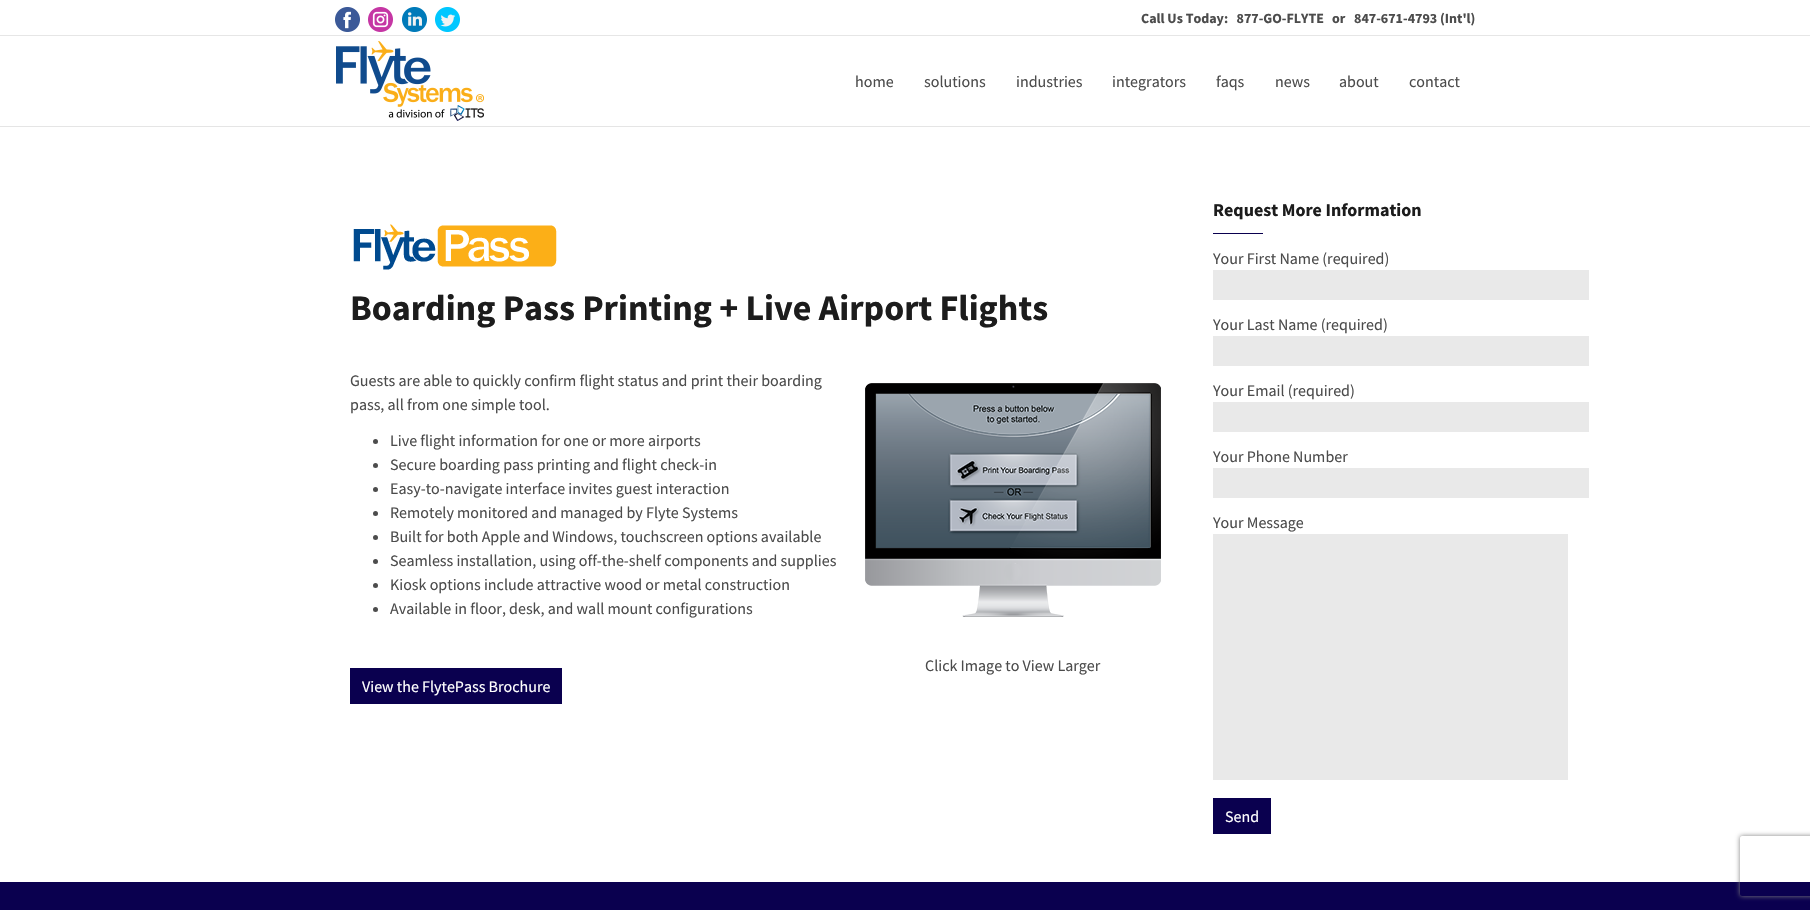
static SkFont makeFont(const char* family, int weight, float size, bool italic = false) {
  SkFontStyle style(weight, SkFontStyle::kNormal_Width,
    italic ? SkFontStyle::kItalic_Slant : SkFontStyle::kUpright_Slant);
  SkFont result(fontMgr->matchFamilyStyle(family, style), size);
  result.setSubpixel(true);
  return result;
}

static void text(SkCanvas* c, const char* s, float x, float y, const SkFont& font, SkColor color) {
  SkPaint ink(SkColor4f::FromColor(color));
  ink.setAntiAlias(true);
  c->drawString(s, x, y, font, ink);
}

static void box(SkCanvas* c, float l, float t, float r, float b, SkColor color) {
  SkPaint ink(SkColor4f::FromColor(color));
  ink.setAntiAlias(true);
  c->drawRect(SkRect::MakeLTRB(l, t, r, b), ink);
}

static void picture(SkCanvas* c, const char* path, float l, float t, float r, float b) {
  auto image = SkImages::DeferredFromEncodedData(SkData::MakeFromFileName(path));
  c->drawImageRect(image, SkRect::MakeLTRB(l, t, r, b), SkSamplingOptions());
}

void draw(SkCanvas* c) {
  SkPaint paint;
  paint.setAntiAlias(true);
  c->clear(0xffffffff);
  box(c, 0, 35, 1810, 36, 0xffe6e6e6);
  picture(c, "img_01.png", 335, 7, 360, 32);
  picture(c, "img_02.png", 368, 7, 393, 32);
  picture(c, "img_03.png", 402, 7, 427, 32);
  picture(c, "img_04.png", 435, 7, 460, 32);
  SkFont face1 = makeFont("Source Sans Pro", 700, 14);
  text(c, "Call Us Today:   877-GO-FLYTE", 1141, 23, face1, 0xff4c4c4c);
  text(c, "or", 1332, 23, face1, 0xff4c4c4c);
  text(c, "847-671-4793 (Int'l)", 1354, 23, face1, 0xff4c4c4c);
  c->save();
  c->clipRect(SkRect::MakeLTRB(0, 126, 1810, 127));
  paint.setColor(0x1a000000);
  paint.setMaskFilter(SkMaskFilter::MakeBlur(kNormal_SkBlurStyle, 0.5f));
  c->drawRect(SkRect::MakeLTRB(0, 37, 1810, 127), paint);
  paint.setMaskFilter(nullptr);
  c->restore();
  picture(c, "img_05.png", 336, 41, 484, 121);
  SkFont face2 = makeFont("Source Sans Pro", 400, 16);
  text(c, "home", 855, 87, face2, 0xff4c4c4c);
  text(c, "solutions", 924, 87, face2, 0xff4c4c4c);
  text(c, "industries", 1016, 87, face2, 0xff4c4c4c);
  text(c, "integrators", 1112, 87, face2, 0xff4c4c4c);
  text(c, "faqs", 1216, 87, face2, 0xff4c4c4c);
  text(c, "news", 1275, 87, face2, 0xff4c4c4c);
  text(c, "about", 1339, 87, face2, 0xff4c4c4c);
  text(c, "contact", 1409, 87, face2, 0xff4c4c4c);
  picture(c, "img_06.png", 353, 224, 557, 270);
  SkFont face3 = makeFont("Source Sans Pro", 700, 36);
  text(c, "Boarding Pass Printing + Live Airport Flights", 350, 320, face3, 0xff1c1c1c);
  text(c, "Guests are able to quickly confirm flight status and print their boarding", 350, 386, face2, 0xff4c4c4c);
  text(c, "pass, all from one simple tool.", 350, 410, face2, 0xff4c4c4c);
  paint.setColor(0xff4c4c4c);
  c->drawCircle(375.5f, 441.5f, 2.5f, paint);
  text(c, "Live flight information for one or more airports", 390, 446, face2, 0xff4c4c4c);
  c->drawCircle(375.5f, 465.5f, 2.5f, paint);
  text(c, "Secure boarding pass printing and flight check-in", 390, 470, face2, 0xff4c4c4c);
  c->drawCircle(375.5f, 489.5f, 2.5f, paint);
  text(c, "Easy-to-navigate interface invites guest interaction", 390, 494, face2, 0xff4c4c4c);
  c->drawCircle(375.5f, 513.5f, 2.5f, paint);
  text(c, "Remotely monitored and managed by Flyte Systems", 390, 518, face2, 0xff4c4c4c);
  c->drawCircle(375.5f, 537.5f, 2.5f, paint);
  text(c, "Built for both Apple and Windows, touchscreen options available", 390, 542, face2, 0xff4c4c4c);
  c->drawCircle(375.5f, 561.5f, 2.5f, paint);
  text(c, "Seamless installation, using off-the-shelf components and supplies", 390, 566, face2, 0xff4c4c4c);
  c->drawCircle(375.5f, 585.5f, 2.5f, paint);
  text(c, "Kiosk options include attractive wood or metal construction", 390, 590, face2, 0xff4c4c4c);
  c->drawCircle(375.5f, 609.5f, 2.5f, paint);
  text(c, "Available in floor, desk, and wall mount configurations", 390, 614, face2, 0xff4c4c4c);
  picture(c, "img_07.png", 865, 383, 1161, 617);
  text(c, "Click Image to View Larger", 925, 671, face2, 0xff4c4c4c);
  box(c, 350, 668, 562, 704, 0xff0a004f);
  text(c, "View the FlytePass Brochure", 362, 692, face2, 0xffffffff);
  SkFont face4 = makeFont("Source Sans Pro", 700, 18);
  text(c, "Request More Information", 1213, 216, face4, 0xff1c1c1c);
  box(c, 1213, 233, 1263, 234, 0xff0a004f);
  text(c, "Your First Name (required)", 1213, 264, face2, 0xff4c4c4c);
  box(c, 1213, 270, 1589, 300, 0xffe9e9e9);
  text(c, "Your Last Name (required)", 1213, 330, face2, 0xff4c4c4c);
  box(c, 1213, 336, 1589, 366, 0xffe9e9e9);
  text(c, "Your Email (required)", 1213, 396, face2, 0xff4c4c4c);
  box(c, 1213, 402, 1589, 432, 0xffe9e9e9);
  text(c, "Your Phone Number", 1213, 462, face2, 0xff4c4c4c);
  box(c, 1213, 468, 1589, 498, 0xffe9e9e9);
  text(c, "Your Message", 1213, 528, face2, 0xff4c4c4c);
  box(c, 1213, 534, 1568, 780, 0xffe9e9e9);
  box(c, 1213, 798, 1271, 834, 0xff0a004f);
  text(c, "Send", 1225, 822, face2, 0xffffffff);
  box(c, 0, 882, 1810, 910, 0xff0a004f);
  c->save();
  c->clipPath(SkPathBuilder(SkPathFillType::kEvenOdd).moveTo(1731, 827).lineTo(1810, 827).lineTo(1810, 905).lineTo(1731, 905).close().moveTo(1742, 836).lineTo(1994, 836).cubicTo(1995, 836, 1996, 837, 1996, 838).lineTo(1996, 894).cubicTo(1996, 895, 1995, 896, 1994, 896).lineTo(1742, 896).cubicTo(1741, 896, 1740, 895, 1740, 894).lineTo(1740, 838).cubicTo(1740, 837, 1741, 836, 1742, 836).close().detach(), true);
  paint.setColor(0xff808080);
  paint.setMaskFilter(SkMaskFilter::MakeBlur(kNormal_SkBlurStyle, 2.5f));
  c->drawRoundRect(SkRect::MakeLTRB(1740, 836, 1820, 896), 2, 2, paint);
  paint.setMaskFilter(nullptr);
  c->restore();
}
